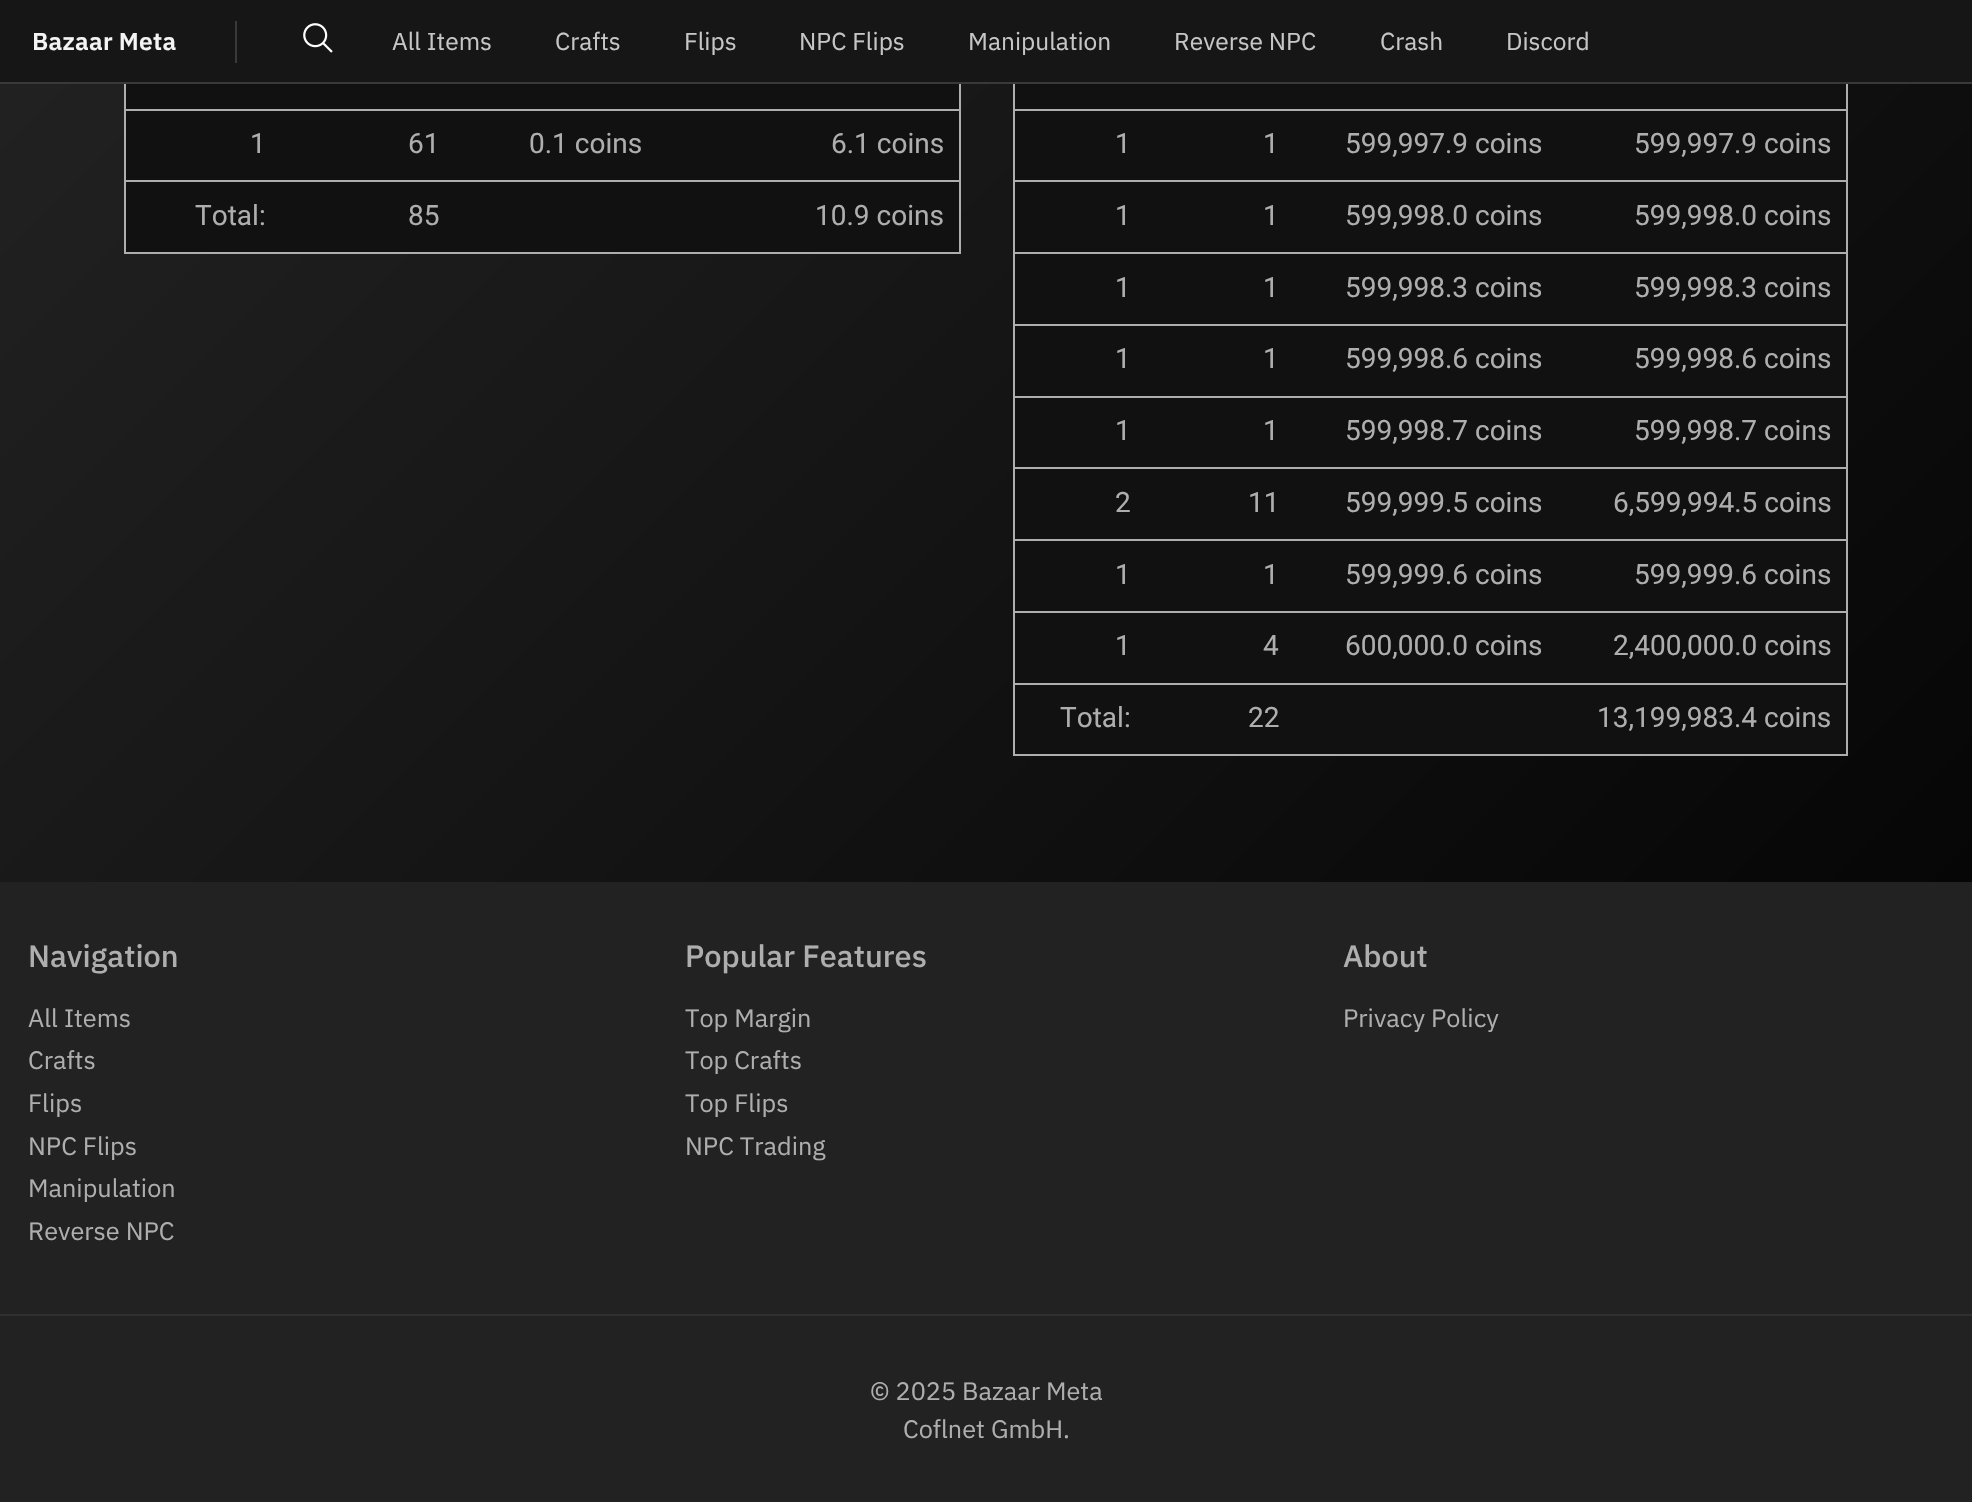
static SkFont makeFont(const char* family, int weight, float size, bool italic = false) {
  SkFontStyle style(weight, SkFontStyle::kNormal_Width,
    italic ? SkFontStyle::kItalic_Slant : SkFontStyle::kUpright_Slant);
  SkFont result(fontMgr->matchFamilyStyle(family, style), size);
  result.setSubpixel(true);
  return result;
}

static void text(SkCanvas* c, const char* s, float x, float y, const SkFont& font, SkColor color) {
  SkPaint ink(SkColor4f::FromColor(color));
  ink.setAntiAlias(true);
  c->drawString(s, x, y, font, ink);
}

static void spacedText(SkCanvas* c, const char* s, float x, float y, const SkFont& font, const SkPaint& ink, float letter, float word) {
  std::vector<SkGlyphID> glyphs(font.countText(s, strlen(s), SkTextEncoding::kUTF8));
  std::vector<float> xs(glyphs.size());
  font.textToGlyphs(s, strlen(s), SkTextEncoding::kUTF8, glyphs);
  font.getXPos(glyphs, xs, x);
  float extra = 0;
  for (size_t i = 0; i < glyphs.size(); i++) {
    xs[i] += extra;
    extra += letter + word * (glyphs[i] == font.unicharToGlyph(' '));
  }
  c->drawTextBlob(SkTextBlob::MakeFromPosHGlyphs(glyphs, xs, y, font), 0, 0, ink);
}

static void box(SkCanvas* c, float l, float t, float r, float b, SkColor color) {
  SkPaint ink(SkColor4f::FromColor(color));
  ink.setAntiAlias(true);
  c->drawRect(SkRect::MakeLTRB(l, t, r, b), ink);
}

static void picture(SkCanvas* c, const char* path, float l, float t, float r, float b) {
  auto image = SkImages::DeferredFromEncodedData(SkData::MakeFromFileName(path));
  c->drawImageRect(image, SkRect::MakeLTRB(l, t, r, b), SkSamplingOptions());
}

void draw(SkCanvas* c) {
  SkPaint paint;
  paint.setAntiAlias(true);
  c->clear(0xffffffff);
  {
    const SkColor colors[] = {0xff000000, 0xff111111, 0xff222222};
    const float stops[] = {0, 0.5f, 1};
    const SkPoint ends[] = {{1855, 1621}, {117, -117}};
    paint.setShader(SkGradientShader::MakeLinear(ends, colors, stops, 3, SkTileMode::kClamp));
    paint.setAlpha(255);
  }
  c->drawRect(SkRect::MakeLTRB(0, 84, 1972, 882), paint);
  box(c, 0, 0, 1972, 82, 0xff161616);
  box(c, 0, 82, 1972, 84, 0xff393939);
  SkFont face1 = makeFont("IBM Plex Sans", 600, 24.5f);
  paint.setShader(nullptr);
  paint.setColor(0xfff4f4f4);
  spacedText(c, "Bazaar Meta", 32, 50, face1, paint, 0.25f, 0);
  box(c, 235, 21, 237, 63, 0xff393939);
  picture(c, "img_01.png", 303, 23, 333, 53);
  SkFont face2 = makeFont("IBM Plex Sans", 400, 24.5f);
  text(c, "All Items", 392, 50, face2, 0xffc6c6c6);
  text(c, "Crafts", 555, 50, face2, 0xffc6c6c6);
  text(c, "Flips", 684, 50, face2, 0xffc6c6c6);
  text(c, "NPC Flips", 799, 50, face2, 0xffc6c6c6);
  text(c, "Manipulation", 968, 50, face2, 0xffc6c6c6);
  text(c, "Reverse NPC", 1174, 50, face2, 0xffc6c6c6);
  text(c, "Crash", 1380, 50, face2, 0xffc6c6c6);
  text(c, "Discord", 1506, 50, face2, 0xffc6c6c6);
  box(c, 126, 84, 959, 252, 0xff111111);
  box(c, 959, 84, 961, 254, 0xffaeaeae);
  box(c, 124, 252, 961, 254, 0xffaeaeae);
  box(c, 124, 84, 126, 254, 0xffaeaeae);
  box(c, 124, 109, 961, 111, 0xffaeaeae);
  SkFont face3 = makeFont("Roboto", 400, 28);
  text(c, "1", 250, 153, face3, 0xffaeaeae);
  text(c, "61", 408, 153, face3, 0xffaeaeae);
  text(c, "0.1 coins", 529, 153, face3, 0xffaeaeae);
  text(c, "6.1 coins", 831, 153, face3, 0xffaeaeae);
  box(c, 124, 180, 961, 182, 0xffaeaeae);
  text(c, "Total:", 195, 225, face3, 0xffaeaeae);
  text(c, "85", 408, 225, face3, 0xffaeaeae);
  text(c, "10.9 coins", 815, 225, face3, 0xffaeaeae);
  box(c, 1015, 84, 1846, 754, 0xff111111);
  box(c, 1846, 84, 1848, 756, 0xffaeaeae);
  box(c, 1013, 754, 1848, 756, 0xffaeaeae);
  box(c, 1013, 84, 1015, 756, 0xffaeaeae);
  box(c, 1013, 109, 1848, 111, 0xffaeaeae);
  text(c, "1", 1115, 153, face3, 0xffaeaeae);
  text(c, "1", 1263, 153, face3, 0xffaeaeae);
  text(c, "599,997.9 coins", 1345, 153, face3, 0xffaeaeae);
  text(c, "599,997.9 coins", 1634, 153, face3, 0xffaeaeae);
  box(c, 1013, 180, 1848, 182, 0xffaeaeae);
  text(c, "1", 1115, 225, face3, 0xffaeaeae);
  text(c, "1", 1263, 225, face3, 0xffaeaeae);
  text(c, "599,998.0 coins", 1345, 225, face3, 0xffaeaeae);
  text(c, "599,998.0 coins", 1634, 225, face3, 0xffaeaeae);
  box(c, 1013, 252, 1848, 254, 0xffaeaeae);
  text(c, "1", 1115, 297, face3, 0xffaeaeae);
  text(c, "1", 1263, 297, face3, 0xffaeaeae);
  text(c, "599,998.3 coins", 1345, 297, face3, 0xffaeaeae);
  text(c, "599,998.3 coins", 1634, 297, face3, 0xffaeaeae);
  box(c, 1013, 324, 1848, 326, 0xffaeaeae);
  text(c, "1", 1115, 368, face3, 0xffaeaeae);
  text(c, "1", 1263, 368, face3, 0xffaeaeae);
  text(c, "599,998.6 coins", 1345, 368, face3, 0xffaeaeae);
  text(c, "599,998.6 coins", 1634, 368, face3, 0xffaeaeae);
  box(c, 1013, 396, 1848, 398, 0xffaeaeae);
  text(c, "1", 1115, 440, face3, 0xffaeaeae);
  text(c, "1", 1263, 440, face3, 0xffaeaeae);
  text(c, "599,998.7 coins", 1345, 440, face3, 0xffaeaeae);
  text(c, "599,998.7 coins", 1634, 440, face3, 0xffaeaeae);
  box(c, 1013, 467, 1848, 469, 0xffaeaeae);
  text(c, "2", 1115, 512, face3, 0xffaeaeae);
  text(c, "11", 1248, 512, face3, 0xffaeaeae);
  text(c, "599,999.5 coins", 1345, 512, face3, 0xffaeaeae);
  text(c, "6,599,994.5 coins", 1613, 512, face3, 0xffaeaeae);
  box(c, 1013, 539, 1848, 541, 0xffaeaeae);
  text(c, "1", 1115, 584, face3, 0xffaeaeae);
  text(c, "1", 1263, 584, face3, 0xffaeaeae);
  text(c, "599,999.6 coins", 1345, 584, face3, 0xffaeaeae);
  text(c, "599,999.6 coins", 1634, 584, face3, 0xffaeaeae);
  box(c, 1013, 611, 1848, 613, 0xffaeaeae);
  text(c, "1", 1115, 655, face3, 0xffaeaeae);
  text(c, "4", 1263, 655, face3, 0xffaeaeae);
  text(c, "600,000.0 coins", 1345, 655, face3, 0xffaeaeae);
  text(c, "2,400,000.0 coins", 1613, 655, face3, 0xffaeaeae);
  box(c, 1013, 683, 1848, 685, 0xffaeaeae);
  text(c, "Total:", 1060, 727, face3, 0xffaeaeae);
  text(c, "22", 1248, 727, face3, 0xffaeaeae);
  text(c, "13,199,983.4 coins", 1597, 727, face3, 0xffaeaeae);
  box(c, 0, 882, 1972, 1502, 0xff222222);
  SkFont face4 = makeFont("IBM Plex Sans", 500, 30.75f);
  text(c, "Navigation", 28, 967, face4, 0xffaeaeae);
  SkFont face5 = makeFont("IBM Plex Sans", 400, 25.25f);
  text(c, "All Items", 28, 1027, face5, 0xffaeaeae);
  text(c, "Crafts", 28, 1069, face5, 0xffaeaeae);
  text(c, "Flips", 28, 1112, face5, 0xffaeaeae);
  text(c, "NPC Flips", 28, 1155, face5, 0xffaeaeae);
  text(c, "Manipulation", 28, 1197, face5, 0xffaeaeae);
  text(c, "Reverse NPC", 28, 1240, face5, 0xffaeaeae);
  text(c, "Popular Features", 685, 967, face4, 0xffaeaeae);
  text(c, "Top Margin", 685, 1027, face5, 0xffaeaeae);
  text(c, "Top Crafts", 685, 1069, face5, 0xffaeaeae);
  text(c, "Top Flips", 685, 1112, face5, 0xffaeaeae);
  text(c, "NPC Trading", 685, 1155, face5, 0xffaeaeae);
  text(c, "About", 1343, 967, face4, 0xffaeaeae);
  text(c, "Privacy Policy", 1343, 1027, face5, 0xffaeaeae);
  box(c, 0, 1314, 1972, 1316, 0xff303030);
  text(c, "© 2025 Bazaar Meta", 870, 1400, face5, 0xffaeaeae);
  text(c, "Coflnet GmbH.", 903, 1438, face5, 0xffaeaeae);
}
